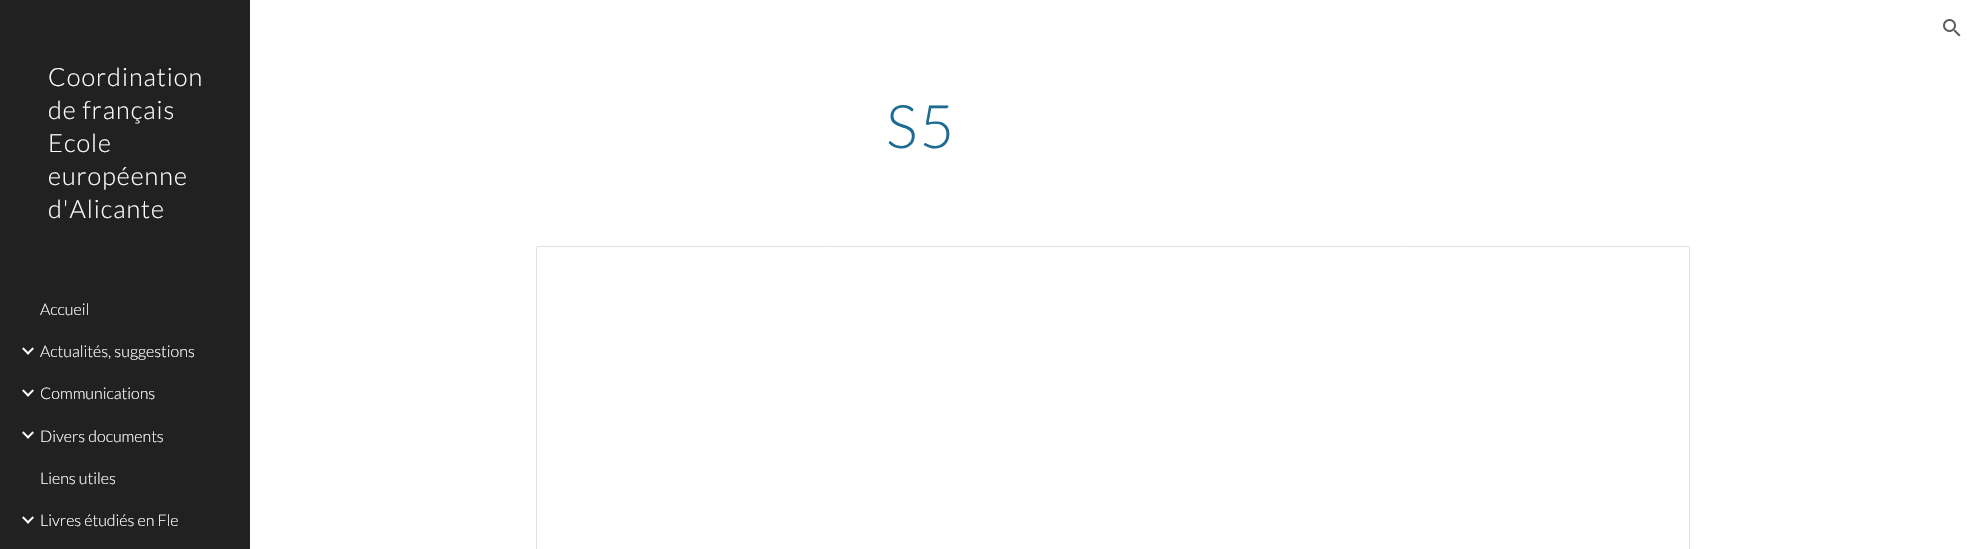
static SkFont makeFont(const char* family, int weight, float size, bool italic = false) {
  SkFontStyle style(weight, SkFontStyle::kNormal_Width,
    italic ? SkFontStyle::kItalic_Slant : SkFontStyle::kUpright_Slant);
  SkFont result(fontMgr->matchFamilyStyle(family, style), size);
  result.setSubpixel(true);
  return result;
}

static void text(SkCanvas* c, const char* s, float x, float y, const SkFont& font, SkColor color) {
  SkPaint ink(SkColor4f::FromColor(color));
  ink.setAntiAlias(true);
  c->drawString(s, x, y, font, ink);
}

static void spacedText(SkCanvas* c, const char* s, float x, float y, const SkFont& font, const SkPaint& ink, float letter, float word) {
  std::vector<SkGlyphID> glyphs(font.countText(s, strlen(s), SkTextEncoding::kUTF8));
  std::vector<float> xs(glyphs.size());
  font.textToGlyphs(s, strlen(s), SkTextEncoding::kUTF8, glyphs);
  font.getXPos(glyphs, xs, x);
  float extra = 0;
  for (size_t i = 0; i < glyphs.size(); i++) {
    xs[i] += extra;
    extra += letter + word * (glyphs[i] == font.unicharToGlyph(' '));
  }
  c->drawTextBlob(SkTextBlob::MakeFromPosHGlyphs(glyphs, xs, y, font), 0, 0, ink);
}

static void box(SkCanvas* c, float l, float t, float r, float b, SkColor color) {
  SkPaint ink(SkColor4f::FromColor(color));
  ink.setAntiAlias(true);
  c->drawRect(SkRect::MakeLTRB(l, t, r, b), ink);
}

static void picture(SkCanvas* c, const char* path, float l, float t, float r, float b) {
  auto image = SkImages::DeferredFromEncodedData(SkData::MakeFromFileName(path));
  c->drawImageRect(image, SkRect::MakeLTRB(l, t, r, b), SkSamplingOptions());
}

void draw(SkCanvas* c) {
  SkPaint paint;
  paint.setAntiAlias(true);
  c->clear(0xffffffff);
  picture(c, "img_01.png", 1943, 19, 1961, 37);
  box(c, 0, 0, 250, 549, 0xff212121);
  SkFont face1 = makeFont("Lato", 300, 25.25f);
  paint.setColor(0xffffffff);
  spacedText(c, "Coordination", 48, 86, face1, paint, 1, 0);
  spacedText(c, "de français", 48, 119, face1, paint, 1, 0);
  spacedText(c, "Ecole", 48, 152, face1, paint, 1, 0);
  spacedText(c, "européenne", 48, 185, face1, paint, 1, 0);
  spacedText(c, "d'Alicante", 48, 218, face1, paint, 1, 0);
  SkFont face2 = makeFont("Lato", 300, 16);
  text(c, "Accueil", 40, 315, face2, 0xffffffff);
  picture(c, "img_02.png", 22, 347, 34, 355);
  text(c, "Actualités, suggestions", 40, 357, face2, 0xffffffff);
  picture(c, "img_02.png", 22, 389, 34, 397);
  text(c, "Communications", 40, 399, face2, 0xffffffff);
  picture(c, "img_02.png", 22, 431, 34, 439);
  text(c, "Divers documents", 40, 442, face2, 0xffffffff);
  text(c, "Liens utiles", 40, 484, face2, 0xffffffff);
  picture(c, "img_02.png", 22, 516, 34, 524);
  text(c, "Livres étudiés en Fle", 40, 526, face2, 0xffffffff);
  SkFont face3 = makeFont("Lato", 300, 60);
  paint.setColor(0xff1e6c93);
  spacedText(c, "S5", 886, 148, face3, paint, 2, 0);
  paint.setStyle(SkPaint::kStroke_Style);
  paint.setStrokeWidth(1);
  paint.setColor(0xffe0e0e0);
  c->drawRoundRect(SkRect::MakeLTRB(536.5f, 246.5f, 1689.5f, 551.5f), 1.5f, 1.5f, paint);
}
